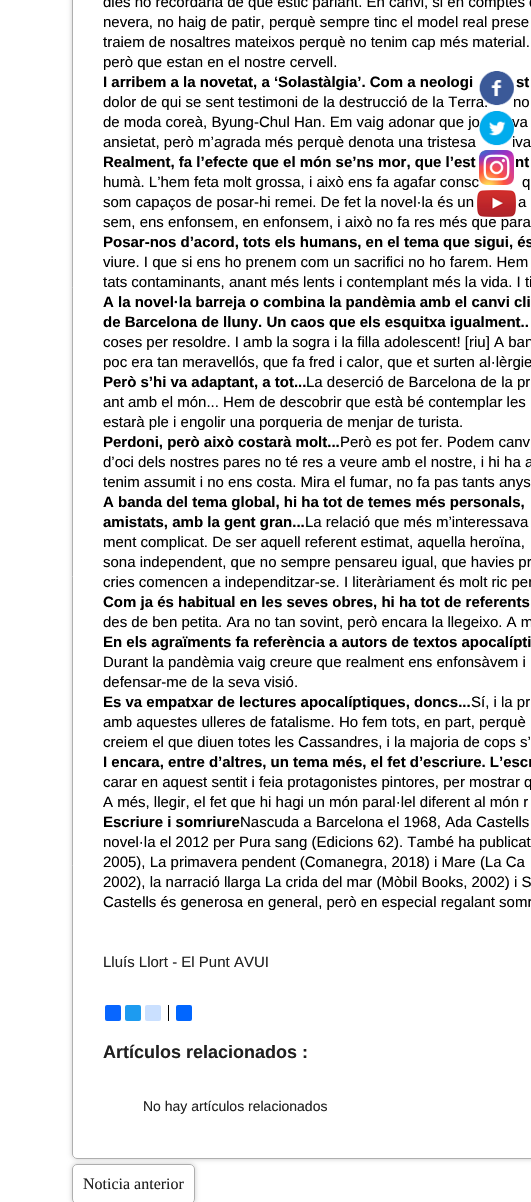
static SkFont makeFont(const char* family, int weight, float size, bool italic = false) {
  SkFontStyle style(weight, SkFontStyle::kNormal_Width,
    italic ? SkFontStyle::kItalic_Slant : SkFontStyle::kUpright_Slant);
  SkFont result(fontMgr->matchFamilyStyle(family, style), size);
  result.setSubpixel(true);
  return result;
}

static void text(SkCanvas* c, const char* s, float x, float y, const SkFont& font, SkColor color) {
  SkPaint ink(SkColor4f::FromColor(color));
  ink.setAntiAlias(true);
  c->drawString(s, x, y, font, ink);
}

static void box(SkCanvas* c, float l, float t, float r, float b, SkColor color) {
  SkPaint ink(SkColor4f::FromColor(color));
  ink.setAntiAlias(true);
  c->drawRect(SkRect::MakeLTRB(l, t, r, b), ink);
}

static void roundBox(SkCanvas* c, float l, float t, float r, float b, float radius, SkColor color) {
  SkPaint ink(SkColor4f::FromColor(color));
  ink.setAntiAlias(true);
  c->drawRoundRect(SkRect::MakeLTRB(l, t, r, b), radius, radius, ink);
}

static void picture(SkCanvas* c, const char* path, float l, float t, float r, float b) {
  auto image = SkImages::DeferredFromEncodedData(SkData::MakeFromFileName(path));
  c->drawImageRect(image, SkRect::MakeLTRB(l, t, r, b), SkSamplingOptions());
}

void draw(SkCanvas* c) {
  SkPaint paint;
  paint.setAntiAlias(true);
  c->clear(0xffffffff);
  c->save();
  c->clipPath(SkPathBuilder(SkPathFillType::kEvenOdd).moveTo(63, 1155).lineTo(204, 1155).lineTo(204, 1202).lineTo(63, 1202).close().moveTo(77, 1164).lineTo(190, 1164).cubicTo(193, 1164, 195, 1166, 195, 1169).lineTo(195, 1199).cubicTo(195, 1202, 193, 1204, 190, 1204).lineTo(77, 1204).cubicTo(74, 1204, 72, 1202, 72, 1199).lineTo(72, 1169).cubicTo(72, 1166, 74, 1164, 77, 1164).close().detach(), true);
  paint.setColor(0xffcccccc);
  paint.setMaskFilter(SkMaskFilter::MakeBlur(kNormal_SkBlurStyle, 2.5f));
  c->drawRoundRect(SkRect::MakeLTRB(72, 1164, 195, 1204), 5, 5, paint);
  paint.setMaskFilter(nullptr);
  c->restore();
  paint.setStyle(SkPaint::kStroke_Style);
  paint.setStrokeWidth(1);
  paint.setColor(0xffaeaeae);
  c->drawRoundRect(SkRect::MakeLTRB(72.5f, 1164.5f, 194.5f, 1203.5f), 4.5f, 4.5f, paint);
  c->save();
  c->clipPath(SkPathBuilder(SkPathFillType::kEvenOdd).moveTo(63, 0).lineTo(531, 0).lineTo(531, 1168).lineTo(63, 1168).close().moveTo(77, -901).lineTo(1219, -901).cubicTo(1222, -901, 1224, -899, 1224, -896).lineTo(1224, 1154).cubicTo(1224, 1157, 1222, 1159, 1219, 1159).lineTo(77, 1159).cubicTo(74, 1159, 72, 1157, 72, 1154).lineTo(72, -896).cubicTo(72, -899, 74, -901, 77, -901).close().detach(), true);
  paint.setStyle(SkPaint::kFill_Style);
  paint.setColor(0xffcccccc);
  paint.setMaskFilter(SkMaskFilter::MakeBlur(kNormal_SkBlurStyle, 2.5f));
  c->drawRoundRect(SkRect::MakeLTRB(72, -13, 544, 1159), 5, 5, paint);
  paint.setMaskFilter(nullptr);
  c->restore();
  paint.setStyle(SkPaint::kStroke_Style);
  paint.setColor(0xffaeaeae);
  c->drawRoundRect(SkRect::MakeLTRB(72.5f, -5.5f, 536.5f, 1158.5f), 4.5f, 4.5f, paint);
  SkFont face1 = makeFont("Liberation Sans", 400, 15);
  text(c, "dies no recordaria de què estic parlant. En canvi, si en comptes d", 103, 7, face1, 0xff000000);
  text(c, "nevera, no haig de patir, perquè sempre tinc el model real prese", 103, 27, face1, 0xff000000);
  text(c, "traiem de nosaltres mateixos perquè no tenim cap més material.", 103, 47, face1, 0xff000000);
  text(c, "però que estan en el nostre cervell.", 103, 67, face1, 0xff000000);
  SkFont face2 = makeFont("Liberation Sans", 700, 15);
  text(c, "I arribem a la novetat, a ‘Solastàlgia’. Com a neologi", 103, 87, face2, 0xff000000);
  text(c, "st", 516, 87, face2, 0xff000000);
  text(c, "dolor de qui se sent testimoni de la destrucció de la Terra.", 103, 107, face1, 0xff000000);
  text(c, "no", 513, 107, face1, 0xff000000);
  text(c, "de moda coreà, Byung-Chul Han. Em vaig adonar que jo", 103, 127, face1, 0xff000000);
  text(c, "va", 512, 127, face1, 0xff000000);
  text(c, "ansietat, però m’agrada més perquè denota una tristesa", 103, 147, face1, 0xff000000);
  text(c, "iva", 512, 147, face1, 0xff000000);
  text(c, "Realment, fa l’efecte que el món se’ns mor, que l’est", 103, 167, face2, 0xff000000);
  text(c, "nt", 515, 167, face2, 0xff000000);
  text(c, "humà. L’hem feta molt grossa, i això ens fa agafar consc", 103, 187, face1, 0xff000000);
  text(c, "q", 522, 187, face1, 0xff000000);
  text(c, "som capaços de posar-hi remei. De fet la novel·la és un", 103, 207, face1, 0xff000000);
  text(c, "a", 518, 207, face1, 0xff000000);
  text(c, "sem, ens enfonsem, en enfonsem, i això no fa res més que para", 103, 227, face1, 0xff000000);
  text(c, "Posar-nos d’acord, tots els humans, en el tema que sigui, és", 103, 247, face2, 0xff000000);
  text(c, "viure. I que si ens ho prenem com un sacrifici no ho farem. Hem", 103, 267, face1, 0xff000000);
  text(c, "tats contaminants, anant més lents i contemplant més la vida. I ti", 103, 287, face1, 0xff000000);
  text(c, "A la novel·la barreja o combina la pandèmia amb el canvi cli", 103, 307, face2, 0xff000000);
  text(c, "de Barcelona de lluny. Un caos que els esquitxa igualment..", 103, 327, face2, 0xff000000);
  text(c, "coses per resoldre. I amb la sogra i la filla adolescent! [riu] A ban", 103, 347, face1, 0xff000000);
  text(c, "poc era tan meravellós, que fa fred i calor, que et surten al·lèrgie", 103, 367, face1, 0xff000000);
  text(c, "Però s’hi va adaptant, a tot...", 103, 387, face2, 0xff000000);
  text(c, "La deserció de Barcelona de la pr", 306, 387, face1, 0xff000000);
  text(c, "ant amb el món... Hem de descobrir que està bé contemplar les", 103, 407, face1, 0xff000000);
  text(c, "estarà ple i engolir una porqueria de menjar de turista.", 103, 427, face1, 0xff000000);
  text(c, "Perdoni, però això costarà molt...", 103, 447, face2, 0xff000000);
  text(c, "Però es pot fer. Podem canv", 340, 447, face1, 0xff000000);
  text(c, "d’oci dels nostres pares no té res a veure amb el nostre, i hi ha a", 103, 467, face1, 0xff000000);
  text(c, "tenim assumit i no ens costa. Mira el fumar, no fa pas tants anys", 103, 487, face1, 0xff000000);
  text(c, "A banda del tema global, hi ha tot de temes més personals,", 103, 507, face2, 0xff000000);
  text(c, "amistats, amb la gent gran...", 103, 527, face2, 0xff000000);
  text(c, "La relació que més m’interessava", 305, 527, face1, 0xff000000);
  text(c, "ment complicat. De ser aquell referent estimat, aquella heroïna,", 103, 547, face1, 0xff000000);
  text(c, "sona independent, que no sempre pensareu igual, que havies pr", 103, 567, face1, 0xff000000);
  text(c, "cries comencen a independitzar-se. I literàriament és molt ric per", 103, 587, face1, 0xff000000);
  text(c, "Com ja és habitual en les seves obres, hi ha tot de referents", 103, 607, face2, 0xff000000);
  text(c, "des de ben petita. Ara no tan sovint, però encara la llegeixo. A m", 103, 627, face1, 0xff000000);
  text(c, "En els agraïments fa referència a autors de textos apocalípti", 103, 647, face2, 0xff000000);
  text(c, "Durant la pandèmia vaig creure que realment ens enfonsàvem i", 103, 667, face1, 0xff000000);
  text(c, "defensar-me de la seva visió.", 103, 687, face1, 0xff000000);
  text(c, "Es va empatxar de lectures apocalíptiques, doncs...", 103, 707, face2, 0xff000000);
  text(c, "Sí, i la pr", 471, 707, face1, 0xff000000);
  text(c, "amb aquestes ulleres de fatalisme. Ho fem tots, en part, perquè", 103, 727, face1, 0xff000000);
  text(c, "creiem el que diuen totes les Cassandres, i la majoria de cops s’", 103, 747, face1, 0xff000000);
  text(c, "I encara, entre d’altres, un tema més, el fet d’escriure. L’escr", 103, 767, face2, 0xff000000);
  text(c, "carar en aquest sentit i feia protagonistes pintores, per mostrar q", 103, 787, face1, 0xff000000);
  text(c, "A més, llegir, el fet que hi hagi un món paral·lel diferent al món r", 103, 807, face1, 0xff000000);
  text(c, "Escriure i somriure", 103, 827, face2, 0xff000000);
  text(c, "Nascuda a Barcelona el 1968, Ada Castells", 240, 827, face1, 0xff000000);
  text(c, "novel·la el 2012 per Pura sang (Edicions 62). També ha publicat", 103, 847, face1, 0xff000000);
  text(c, "2005), La primavera pendent (Comanegra, 2018) i Mare (La Ca", 103, 867, face1, 0xff000000);
  text(c, "2002), la narració llarga La crida del mar (Mòbil Books, 2002) i S", 103, 887, face1, 0xff000000);
  text(c, "Castells és generosa en general, però en especial regalant somr", 103, 907, face1, 0xff000000);
  text(c, "Lluís Llort - El Punt AVUI", 103, 967, face1, 0xff202020);
  roundBox(c, 105, 1005, 121, 1021, 2, 0xff0866ff);
  roundBox(c, 125, 1005, 141, 1021, 2, 0xff1d9bf0);
  roundBox(c, 145, 1005, 161, 1021, 2, 0xffcae0ff);
  box(c, 168, 1005, 169, 1021, 0xff000000);
  roundBox(c, 176, 1005, 192, 1021, 2, 0xff0166ff);
  SkFont face3 = makeFont("Liberation Sans", 700, 18);
  text(c, "Artículos relacionados :", 103, 1058, face3, 0xff202020);
  SkFont face4 = makeFont("Liberation Sans", 400, 14);
  text(c, "No hay artículos relacionados", 143, 1111, face4, 0xff202020);
  SkFont face5 = makeFont("Liberation Serif", 400, 16);
  text(c, "Noticia anterior", 83, 1189, face5, 0xff202020);
  picture(c, "img_01.png", 479, 71, 514, 106);
  picture(c, "img_02.png", 479, 111, 514, 146);
  picture(c, "img_03.png", 479, 150, 514, 185);
  picture(c, "img_04.png", 477, 190, 516, 217);
}
